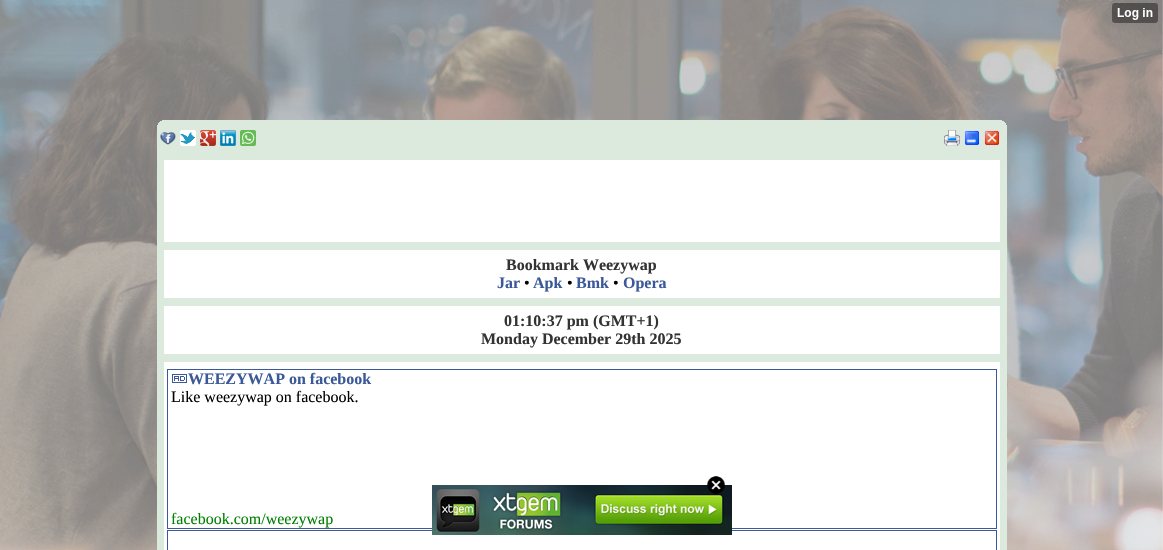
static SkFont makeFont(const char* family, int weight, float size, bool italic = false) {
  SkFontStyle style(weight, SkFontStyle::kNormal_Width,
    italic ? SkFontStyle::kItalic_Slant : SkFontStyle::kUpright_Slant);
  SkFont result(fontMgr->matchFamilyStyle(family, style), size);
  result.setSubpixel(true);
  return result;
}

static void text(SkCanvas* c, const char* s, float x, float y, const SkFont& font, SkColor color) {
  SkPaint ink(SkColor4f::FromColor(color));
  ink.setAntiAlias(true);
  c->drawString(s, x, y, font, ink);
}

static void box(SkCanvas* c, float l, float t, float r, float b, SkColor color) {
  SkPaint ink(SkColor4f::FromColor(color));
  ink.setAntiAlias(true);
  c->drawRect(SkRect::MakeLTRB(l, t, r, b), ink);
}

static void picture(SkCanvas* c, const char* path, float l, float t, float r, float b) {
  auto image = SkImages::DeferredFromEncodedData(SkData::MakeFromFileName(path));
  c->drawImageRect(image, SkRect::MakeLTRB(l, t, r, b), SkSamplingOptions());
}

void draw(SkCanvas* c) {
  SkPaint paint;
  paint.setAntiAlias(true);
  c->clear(0xffffffff);
  picture(c, "img_01.png", 0, 0, 1163, 550);
  picture(c, "img_02.png", 0, 0, 1163, 550);
  picture(c, "img_03.png", 1112, 3, 1158, 23);
  box(c, 162, 120, 1002, 121, 0xffdbeadc);
  box(c, 160, 121, 1004, 122, 0xffdbeadc);
  box(c, 159, 122, 1005, 123, 0xffdbeadc);
  box(c, 158, 123, 1006, 125, 0xffdbeadc);
  box(c, 157, 125, 1007, 550, 0xffdbeadc);
  picture(c, "img_04.png", 160, 132, 176, 145);
  picture(c, "img_05.png", 180, 130, 196, 146);
  picture(c, "img_06.png", 200, 130, 216, 146);
  picture(c, "img_07.png", 220, 130, 236, 146);
  picture(c, "img_08.png", 240, 130, 256, 146);
  picture(c, "img_09.png", 944, 130, 960, 146);
  picture(c, "img_10.png", 964, 130, 980, 146);
  picture(c, "img_11.png", 984, 130, 1000, 146);
  box(c, 164, 160, 1000, 242, 0xffffffff);
  box(c, 164, 250, 1000, 298, 0xffffffff);
  SkFont face1 = makeFont("Liberation Serif", 700, 16);
  text(c, "Bookmark Weezywap", 506, 270, face1, 0xff333333);
  text(c, "Jar", 497, 288, face1, 0xff3b5998);
  SkFont face2 = makeFont("Liberation Serif", 400, 16);
  text(c, "•", 524, 288, face2, 0xff000000);
  text(c, "Apk", 533, 288, face1, 0xff3b5998);
  text(c, "•", 567, 288, face2, 0xff000000);
  text(c, "Bmk", 576, 288, face1, 0xff3b5998);
  text(c, "•", 613, 288, face2, 0xff000000);
  text(c, "Opera", 623, 288, face1, 0xff3b5998);
  box(c, 164, 306, 1000, 354, 0xffffffff);
  text(c, "01:10:37 pm (GMT+1)", 504, 326, face1, 0xff333333);
  text(c, "Monday December 29th 2025", 481, 344, face1, 0xff333333);
  box(c, 164, 362, 1000, 550, 0xffffffff);
  paint.setStyle(SkPaint::kStroke_Style);
  paint.setStrokeWidth(1);
  paint.setColor(0xff3b5998);
  c->drawRect(SkRect::MakeLTRB(167.5f, 369.5f, 996.5f, 528.5f), paint);
  picture(c, "img_12.png", 172, 374, 187, 383);
  text(c, "WEEZYWAP on facebook", 188, 384, face1, 0xff3b5998);
  text(c, "Like weezywap on facebook.", 171, 402, face2, 0xff000000);
  text(c, "facebook.com/weezywap", 171, 524, face2, 0xff008000);
  c->drawRect(SkRect::MakeLTRB(167.5f, 530.5f, 996.5f, 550.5f), paint);
  picture(c, "img_14.png", 432, 485, 732, 535);
  picture(c, "img_13.png", 707, 476, 725, 494);
}
